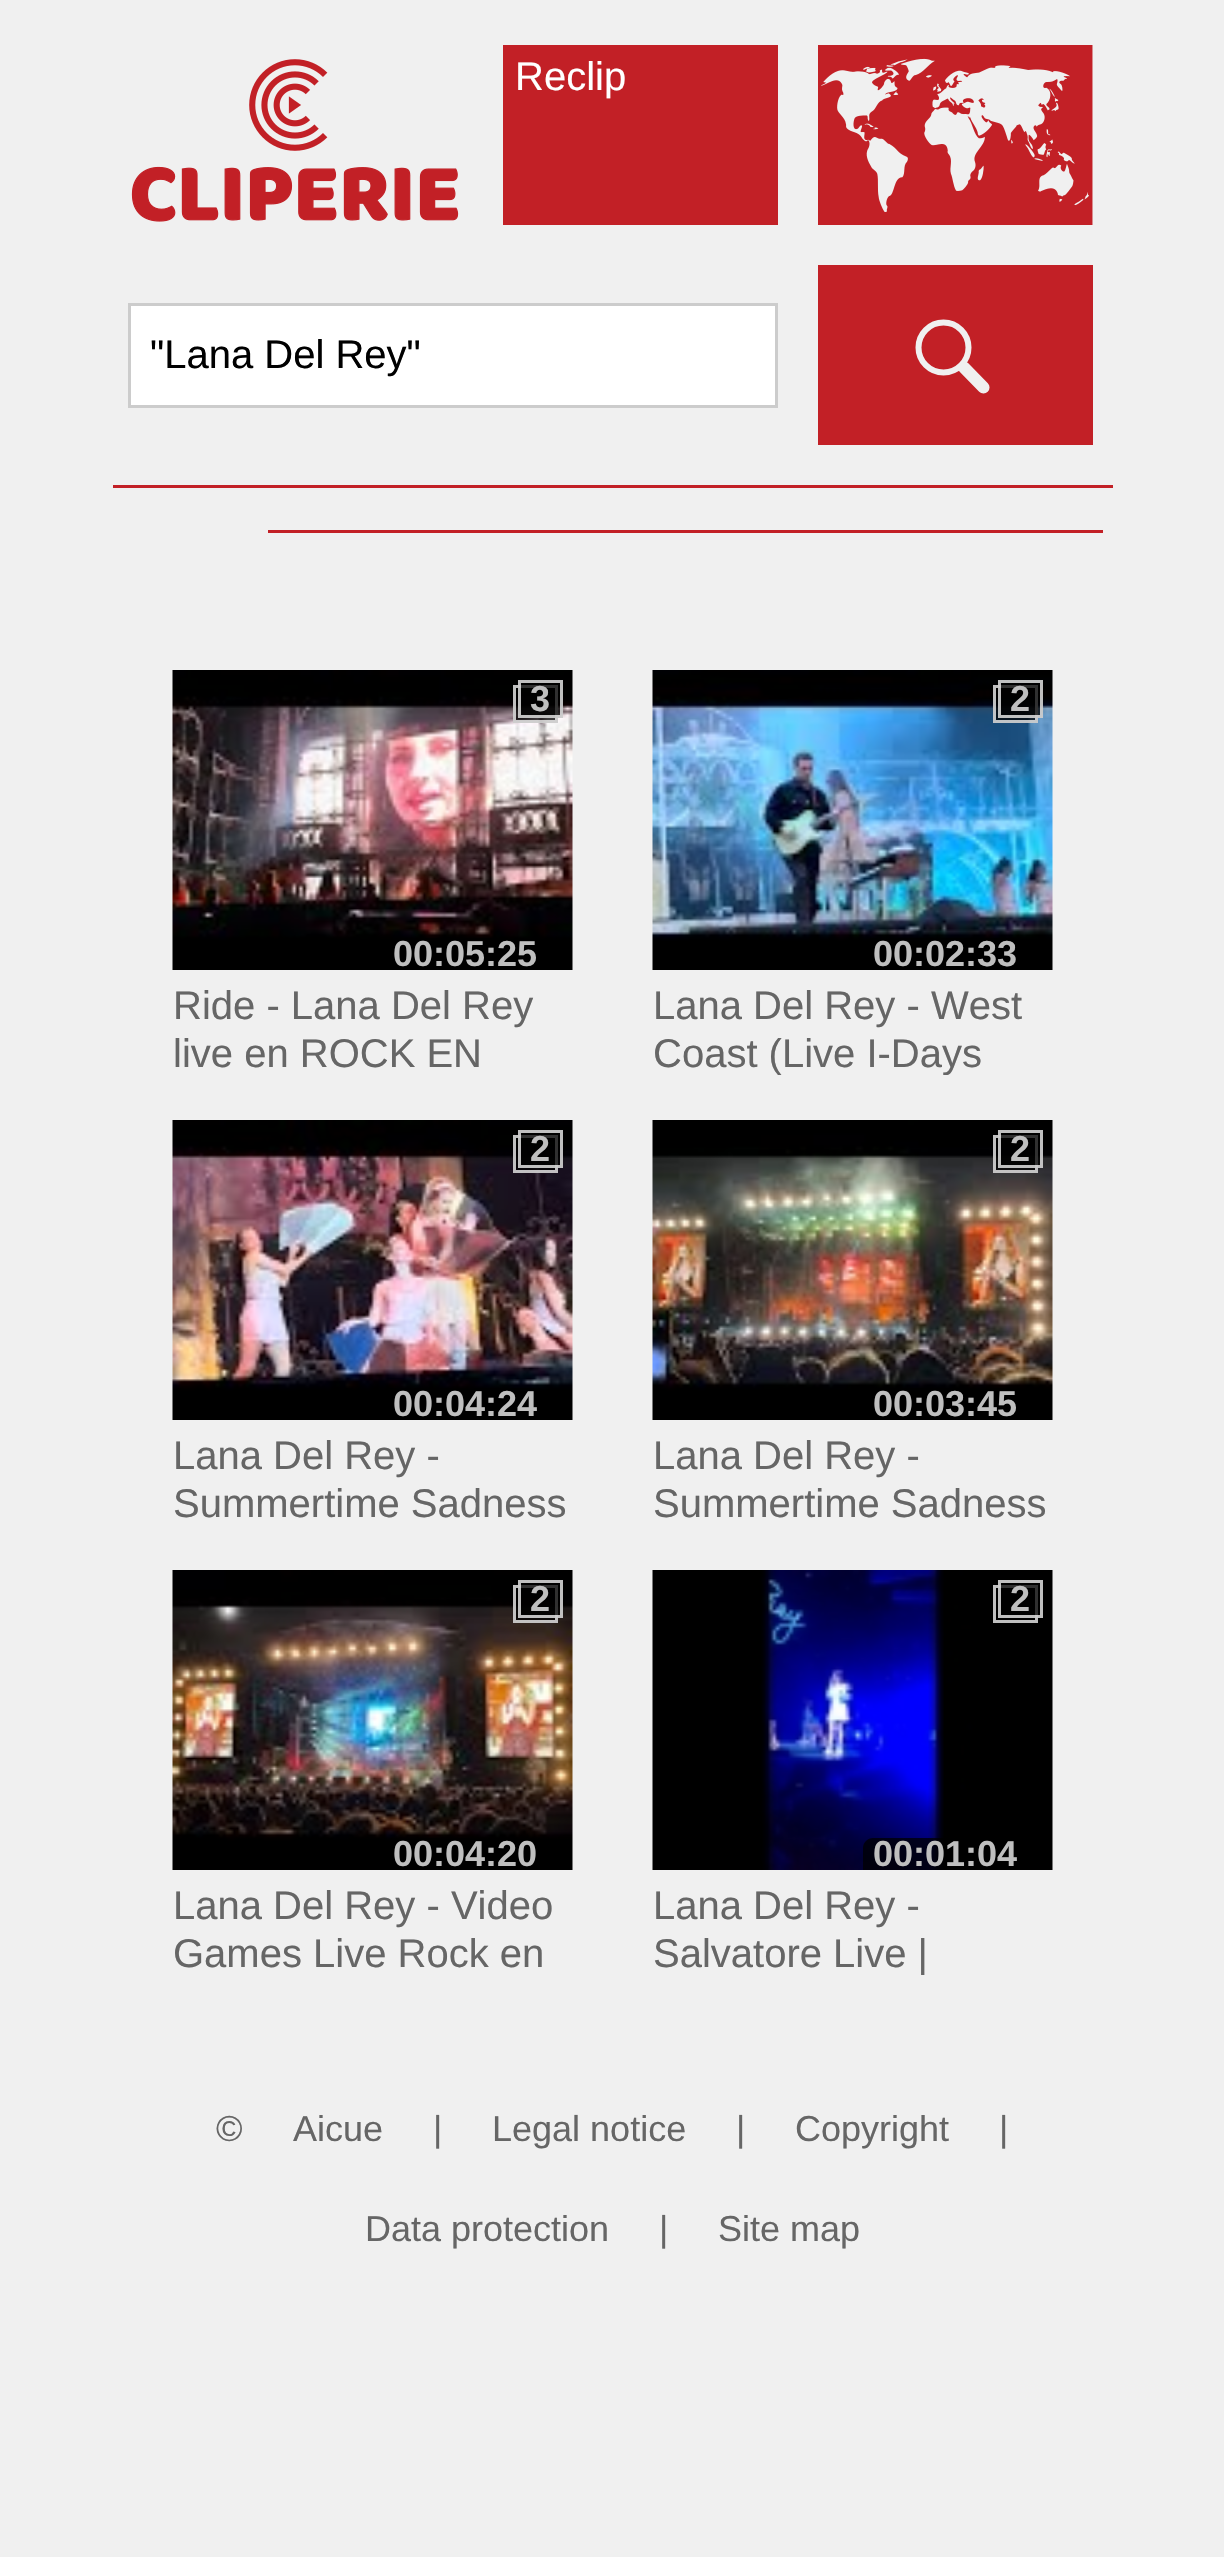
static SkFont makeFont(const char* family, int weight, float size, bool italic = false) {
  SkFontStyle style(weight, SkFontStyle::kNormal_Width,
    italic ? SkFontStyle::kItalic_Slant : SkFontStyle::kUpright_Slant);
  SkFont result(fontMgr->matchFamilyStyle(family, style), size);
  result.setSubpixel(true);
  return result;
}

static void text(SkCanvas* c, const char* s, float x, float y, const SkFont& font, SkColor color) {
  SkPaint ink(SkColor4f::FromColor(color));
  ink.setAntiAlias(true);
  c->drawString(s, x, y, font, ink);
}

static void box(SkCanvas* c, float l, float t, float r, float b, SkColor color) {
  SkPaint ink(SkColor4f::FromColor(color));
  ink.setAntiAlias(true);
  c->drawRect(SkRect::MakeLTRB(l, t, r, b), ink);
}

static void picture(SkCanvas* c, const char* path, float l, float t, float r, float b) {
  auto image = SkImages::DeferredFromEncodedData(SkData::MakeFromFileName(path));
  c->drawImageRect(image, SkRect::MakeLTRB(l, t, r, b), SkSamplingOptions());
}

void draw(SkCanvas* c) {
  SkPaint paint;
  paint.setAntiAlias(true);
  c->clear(0xfff0f0f0);
  box(c, 113, 485, 1113, 488, 0xffc22026);
  picture(c, "img_01.png", 131, 59, 459, 222);
  box(c, 503, 45, 778, 225, 0xffc22026);
  SkFont face1 = makeFont("Liberation Sans", 400, 40);
  text(c, "Reclip", 515, 90, face1, 0xffffffff);
  picture(c, "img_02.png", 818, 45, 1093, 225);
  paint.setColor(0xffffffff);
  c->drawRect(SkRect::MakeLTRB(129.5f, 304.5f, 776.5f, 406.5f), paint);
  paint.setStyle(SkPaint::kStroke_Style);
  paint.setStrokeWidth(3);
  paint.setColor(0xffcccccc);
  c->drawRect(SkRect::MakeLTRB(129.5f, 304.5f, 776.5f, 406.5f), paint);
  text(c, "\"Lana Del Rey\"", 150, 368, face1, 0xff000000);
  box(c, 818, 265, 1093, 445, 0xffc22026);
  paint.setStrokeWidth(6);
  paint.setColor(0xfff0f0f0);
  c->drawCircle(943.5f, 347.5f, 25, paint);
  paint.setStrokeWidth(12.1f);
  paint.setStrokeCap(SkPaint::kRound_Cap);
  c->drawPath(SkPathBuilder().moveTo(964, 367.5f).lineTo(983.5f, 387.5f).detach(), paint);
  box(c, 268, 530, 1103, 533, 0xffc22026);
  picture(c, "img_03.png", 172, 670, 573, 970);
  box(c, 513, 697, 558, 723, 0xbf000000);
  paint.setStrokeWidth(3);
  paint.setStrokeCap(SkPaint::kButt_Cap);
  paint.setColor(0xbfffffff);
  c->drawRect(SkRect::MakeLTRB(514.5f, 686.5f, 556.5f, 721.5f), paint);
  box(c, 518, 685, 563, 718, 0xbf000000);
  c->drawRect(SkRect::MakeLTRB(519.5f, 681.5f, 561.5f, 716.5f), paint);
  SkFont face2 = makeFont("Liberation Sans", 700, 36);
  text(c, "3", 530, 711, face2, 0xffbfbfbf);
  paint.setStyle(SkPaint::kFill_Style);
  paint.setColor(0xbf000000);
  c->drawPath(SkPathBuilder().moveTo(393, 938).lineTo(538, 938).cubicTo(543.5f, 938, 548, 942.5f, 548, 948).lineTo(548, 970).lineTo(383, 970).lineTo(383, 948).cubicTo(383, 942.5f, 387.5f, 938, 393, 938).close().detach(), paint);
  text(c, "00:05:25", 393, 966, face2, 0xffbfbfbf);
  text(c, "Ride - Lana Del Rey", 173, 1019, face1, 0xff666666);
  text(c, "live en ROCK EN", 173, 1067, face1, 0xff666666);
  picture(c, "img_04.png", 652, 670, 1053, 970);
  box(c, 993, 690, 1038, 723, 0xbf000000);
  paint.setStyle(SkPaint::kStroke_Style);
  paint.setColor(0xbfffffff);
  c->drawRect(SkRect::MakeLTRB(994.5f, 686.5f, 1036.5f, 721.5f), paint);
  box(c, 998, 685, 1043, 718, 0xbf000000);
  c->drawRect(SkRect::MakeLTRB(999.5f, 681.5f, 1041.5f, 716.5f), paint);
  text(c, "2", 1010, 711, face2, 0xffbfbfbf);
  paint.setStyle(SkPaint::kFill_Style);
  paint.setColor(0xbf000000);
  c->drawPath(SkPathBuilder().moveTo(873, 938).lineTo(1018, 938).cubicTo(1023.5f, 938, 1028, 942.5f, 1028, 948).lineTo(1028, 970).lineTo(863, 970).lineTo(863, 948).cubicTo(863, 942.5f, 867.5f, 938, 873, 938).close().detach(), paint);
  text(c, "00:02:33", 873, 966, face2, 0xffbfbfbf);
  text(c, "Lana Del Rey - West", 653, 1019, face1, 0xff666666);
  c->save();
  c->clipRect(SkRect::MakeLTRB(643, 980, 1083, 1075));
  text(c, "Coast (Live I-Days", 653, 1067, face1, 0xff666666);
  c->restore();
  picture(c, "img_05.png", 172, 1120, 573, 1420);
  box(c, 513, 1147, 558, 1173, 0xbf000000);
  paint.setStyle(SkPaint::kStroke_Style);
  paint.setColor(0xbfffffff);
  c->drawRect(SkRect::MakeLTRB(514.5f, 1136.5f, 556.5f, 1171.5f), paint);
  box(c, 518, 1135, 563, 1168, 0xbf000000);
  c->drawRect(SkRect::MakeLTRB(519.5f, 1131.5f, 561.5f, 1166.5f), paint);
  text(c, "2", 530, 1161, face2, 0xffbfbfbf);
  paint.setStyle(SkPaint::kFill_Style);
  paint.setColor(0xbf000000);
  c->drawPath(SkPathBuilder().moveTo(393, 1388).lineTo(538, 1388).cubicTo(543.5f, 1388, 548, 1392.5f, 548, 1398).lineTo(548, 1420).lineTo(383, 1420).lineTo(383, 1398).cubicTo(383, 1392.5f, 387.5f, 1388, 393, 1388).close().detach(), paint);
  text(c, "00:04:24", 393, 1416, face2, 0xffbfbfbf);
  text(c, "Lana Del Rey -", 173, 1469, face1, 0xff666666);
  text(c, "Summertime Sadness", 173, 1517, face1, 0xff666666);
  picture(c, "img_06.png", 652, 1120, 1053, 1420);
  box(c, 993, 1148, 1038, 1173, 0xbf000000);
  paint.setStyle(SkPaint::kStroke_Style);
  paint.setColor(0xbfffffff);
  c->drawRect(SkRect::MakeLTRB(994.5f, 1136.5f, 1036.5f, 1171.5f), paint);
  box(c, 998, 1135, 1043, 1168, 0xbf000000);
  c->drawRect(SkRect::MakeLTRB(999.5f, 1131.5f, 1041.5f, 1166.5f), paint);
  text(c, "2", 1010, 1161, face2, 0xffbfbfbf);
  paint.setStyle(SkPaint::kFill_Style);
  paint.setColor(0xbf000000);
  c->drawPath(SkPathBuilder().moveTo(873, 1388).lineTo(1018, 1388).cubicTo(1023.5f, 1388, 1028, 1392.5f, 1028, 1398).lineTo(1028, 1420).lineTo(863, 1420).lineTo(863, 1398).cubicTo(863, 1392.5f, 867.5f, 1388, 873, 1388).close().detach(), paint);
  text(c, "00:03:45", 873, 1416, face2, 0xffbfbfbf);
  text(c, "Lana Del Rey -", 653, 1469, face1, 0xff666666);
  text(c, "Summertime Sadness", 653, 1517, face1, 0xff666666);
  picture(c, "img_07.png", 172, 1570, 573, 1870);
  box(c, 513, 1603, 558, 1623, 0xbf000000);
  paint.setStyle(SkPaint::kStroke_Style);
  paint.setColor(0xbfffffff);
  c->drawRect(SkRect::MakeLTRB(514.5f, 1586.5f, 556.5f, 1621.5f), paint);
  box(c, 518, 1585, 563, 1618, 0xbf000000);
  c->drawRect(SkRect::MakeLTRB(519.5f, 1581.5f, 561.5f, 1616.5f), paint);
  text(c, "2", 530, 1611, face2, 0xffbfbfbf);
  paint.setStyle(SkPaint::kFill_Style);
  paint.setColor(0xbf000000);
  c->drawPath(SkPathBuilder().moveTo(393, 1838).lineTo(538, 1838).cubicTo(543.5f, 1838, 548, 1842.5f, 548, 1848).lineTo(548, 1870).lineTo(383, 1870).lineTo(383, 1848).cubicTo(383, 1842.5f, 387.5f, 1838, 393, 1838).close().detach(), paint);
  text(c, "00:04:20", 393, 1866, face2, 0xffbfbfbf);
  text(c, "Lana Del Rey - Video", 173, 1919, face1, 0xff666666);
  text(c, "Games Live Rock en", 173, 1967, face1, 0xff666666);
  picture(c, "img_08.png", 652, 1570, 1053, 1870);
  paint.setStyle(SkPaint::kStroke_Style);
  paint.setColor(0xffbfbfbf);
  c->drawRect(SkRect::MakeLTRB(994.5f, 1586.5f, 1036.5f, 1621.5f), paint);
  box(c, 998, 1585, 1038, 1618, 0xbf000000);
  paint.setColor(0xbfffffff);
  c->drawRect(SkRect::MakeLTRB(999.5f, 1581.5f, 1041.5f, 1616.5f), paint);
  text(c, "2", 1010, 1611, face2, 0xffbfbfbf);
  paint.setStyle(SkPaint::kFill_Style);
  paint.setColor(0xbf000000);
  c->drawPath(SkPathBuilder().moveTo(873, 1838).lineTo(1018, 1838).cubicTo(1023.5f, 1838, 1028, 1842.5f, 1028, 1848).lineTo(1028, 1870).lineTo(863, 1870).lineTo(863, 1848).cubicTo(863, 1842.5f, 867.5f, 1838, 873, 1838).close().detach(), paint);
  text(c, "00:01:04", 873, 1866, face2, 0xffbfbfbf);
  text(c, "Lana Del Rey -", 653, 1919, face1, 0xff666666);
  c->save();
  c->clipRect(SkRect::MakeLTRB(643, 1880, 1083, 1975));
  text(c, "Salvatore Live |", 653, 1967, face1, 0xff666666);
  c->restore();
  SkFont face3 = makeFont("Liberation Sans", 400, 36);
  text(c, "©", 216, 2141, face3, 0xff666666);
  text(c, "Aicue", 293, 2141, face3, 0xff666666);
  text(c, "|", 433, 2141, face3, 0xff666666);
  text(c, "Legal notice", 492, 2141, face3, 0xff666666);
  text(c, "|", 736, 2141, face3, 0xff666666);
  text(c, "Copyright", 795, 2141, face3, 0xff666666);
  text(c, "|", 999, 2141, face3, 0xff666666);
  text(c, "Data protection", 365, 2241, face3, 0xff666666);
  text(c, "|", 659, 2241, face3, 0xff666666);
  text(c, "Site map", 718, 2241, face3, 0xff666666);
}
